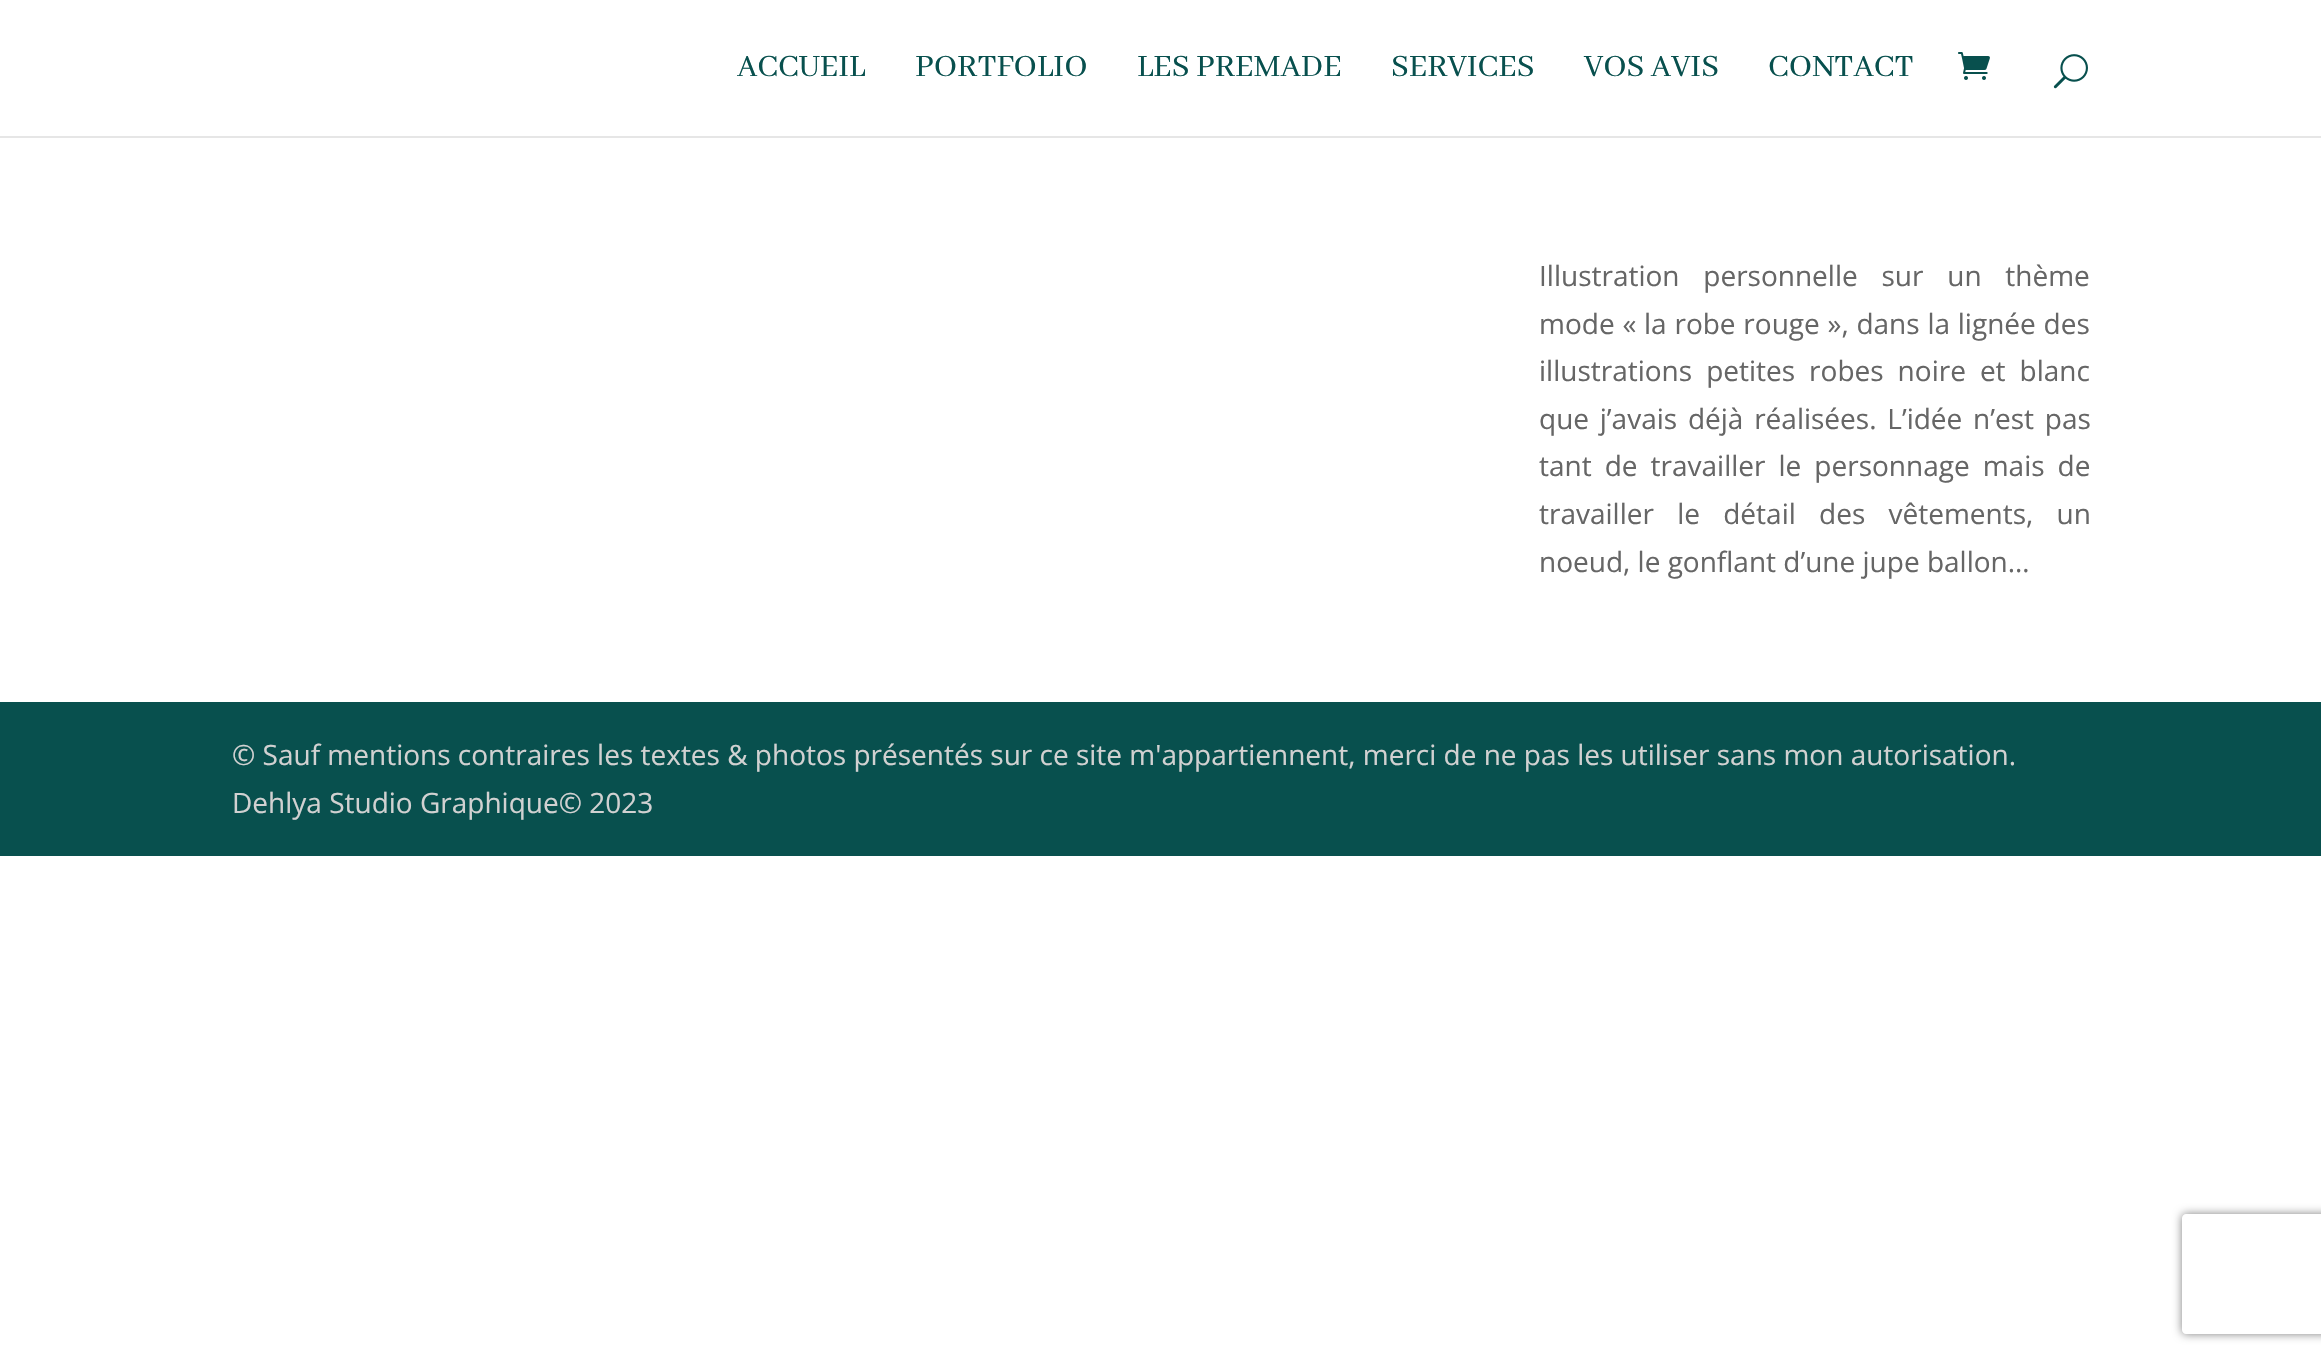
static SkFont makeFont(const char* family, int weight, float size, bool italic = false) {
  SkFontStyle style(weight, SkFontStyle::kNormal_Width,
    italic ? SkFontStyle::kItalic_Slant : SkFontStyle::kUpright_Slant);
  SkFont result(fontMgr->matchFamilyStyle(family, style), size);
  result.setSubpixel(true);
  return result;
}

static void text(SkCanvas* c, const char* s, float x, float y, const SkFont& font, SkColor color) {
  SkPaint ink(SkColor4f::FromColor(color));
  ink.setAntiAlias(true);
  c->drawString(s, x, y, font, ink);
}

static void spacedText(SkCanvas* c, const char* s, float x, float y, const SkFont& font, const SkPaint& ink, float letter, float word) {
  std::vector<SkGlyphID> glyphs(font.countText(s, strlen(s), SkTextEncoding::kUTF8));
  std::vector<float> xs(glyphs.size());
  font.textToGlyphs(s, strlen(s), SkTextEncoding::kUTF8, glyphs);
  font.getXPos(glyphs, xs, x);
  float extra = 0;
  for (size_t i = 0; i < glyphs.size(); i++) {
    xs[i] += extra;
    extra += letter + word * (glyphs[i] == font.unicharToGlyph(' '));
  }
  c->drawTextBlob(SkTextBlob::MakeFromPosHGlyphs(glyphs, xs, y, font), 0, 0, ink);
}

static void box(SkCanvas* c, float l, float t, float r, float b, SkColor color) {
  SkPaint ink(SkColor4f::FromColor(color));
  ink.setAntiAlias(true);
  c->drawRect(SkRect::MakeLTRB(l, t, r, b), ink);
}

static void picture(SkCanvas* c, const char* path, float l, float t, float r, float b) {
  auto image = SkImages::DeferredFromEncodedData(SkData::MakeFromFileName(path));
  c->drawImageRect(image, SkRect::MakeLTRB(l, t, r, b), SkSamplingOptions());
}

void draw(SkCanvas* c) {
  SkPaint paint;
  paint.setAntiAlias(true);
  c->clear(0xffffffff);
  box(c, 0, 136, 2321, 138, 0xffe6e6e6);
  SkFont face1 = makeFont("Abhaya Libre", 400, 34);
  text(c, "ACCUEIL", 737, 76, face1, 0xff08504e);
  text(c, "PORTFOLIO", 915, 76, face1, 0xff08504e);
  text(c, "LES PREMADE", 1137, 76, face1, 0xff08504e);
  text(c, "SERVICES", 1391, 76, face1, 0xff08504e);
  text(c, "VOS AVIS", 1584, 76, face1, 0xff08504e);
  text(c, "CONTACT", 1768, 76, face1, 0xff08504e);
  picture(c, "img_01.png", 1958, 52, 1990, 80);
  picture(c, "img_02.png", 2053, 54, 2088, 89);
  SkFont face2 = makeFont("Open Sans", 400, 28);
  paint.setColor(0xff666666);
  spacedText(c, "Illustration personnelle sur un thème", 1539, 286, face2, paint, 0, 16.5f);
  spacedText(c, "mode « la robe rouge », dans la lignée des", 1539, 334, face2, paint, 0, 0.5f);
  spacedText(c, "illustrations petites robes noire et blanc", 1539, 381, face2, paint, 0, 6.75f);
  spacedText(c, "que j’avais déjà réalisées. L’idée n’est pas", 1539, 429, face2, paint, 0, 3.5f);
  spacedText(c, "tant de travailler le personnage mais de", 1539, 476, face2, paint, 0, 5.75f);
  spacedText(c, "travailler le détail des vêtements, un", 1539, 524, face2, paint, 0, 16);
  text(c, "noeud, le gonflant d’une jupe ballon…", 1539, 572, face2, 0xff666666);
  box(c, 0, 702, 2321, 856, 0xff08504e);
  text(c, "© Sauf mentions contraires les textes & photos présentés sur ce site m'appartiennent, merci de ne pas les utiliser sans mon autorisation.", 232, 765, face2, 0xffd1d1d1);
  text(c, "Dehlya Studio Graphique© 2023", 232, 813, face2, 0xffd1d1d1);
  c->save();
  c->clipPath(SkPathBuilder(SkPathFillType::kEvenOdd).moveTo(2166, 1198).lineTo(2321, 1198).lineTo(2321, 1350).lineTo(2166, 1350).close().moveTo(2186, 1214).lineTo(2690, 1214).cubicTo(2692, 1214, 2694, 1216, 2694, 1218).lineTo(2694, 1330).cubicTo(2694, 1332, 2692, 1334, 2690, 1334).lineTo(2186, 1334).cubicTo(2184, 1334, 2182, 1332, 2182, 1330).lineTo(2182, 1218).cubicTo(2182, 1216, 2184, 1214, 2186, 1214).close().detach(), true);
  paint.setColor(0xff808080);
  paint.setMaskFilter(SkMaskFilter::MakeBlur(kNormal_SkBlurStyle, 5));
  c->drawRoundRect(SkRect::MakeLTRB(2182, 1214, 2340, 1334), 4, 4, paint);
  paint.setMaskFilter(nullptr);
  c->restore();
}
